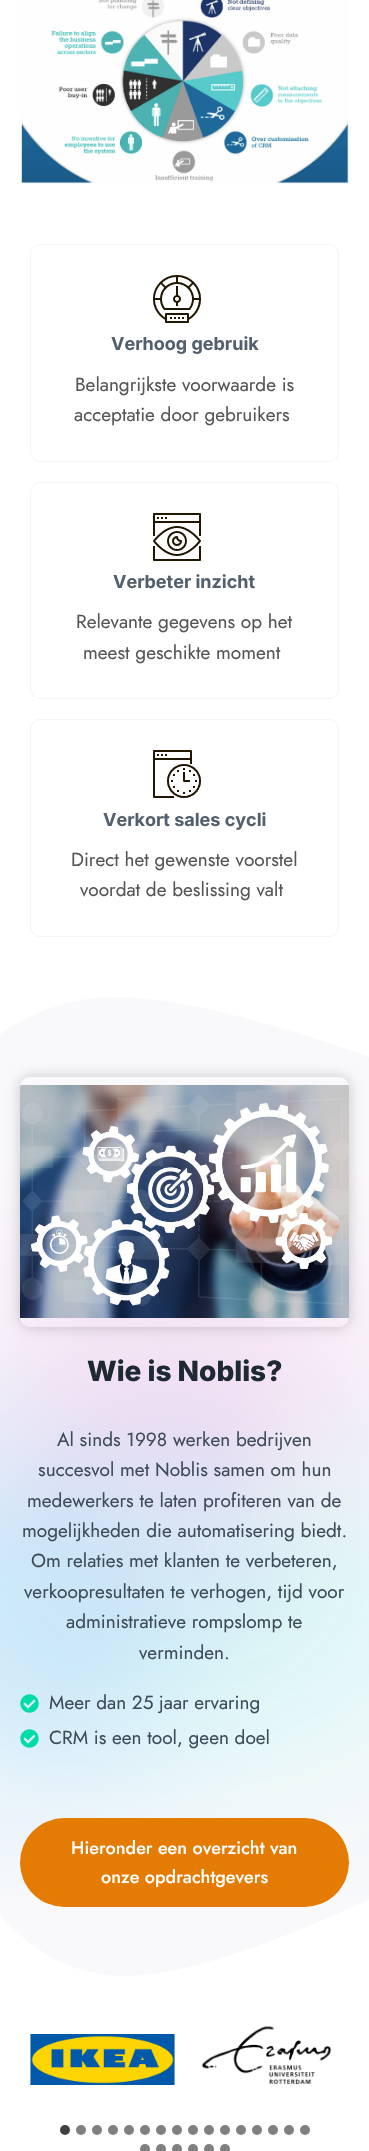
static SkFont makeFont(const char* family, int weight, float size, bool italic = false) {
  SkFontStyle style(weight, SkFontStyle::kNormal_Width,
    italic ? SkFontStyle::kItalic_Slant : SkFontStyle::kUpright_Slant);
  SkFont result(fontMgr->matchFamilyStyle(family, style), size);
  result.setSubpixel(true);
  return result;
}

static void text(SkCanvas* c, const char* s, float x, float y, const SkFont& font, SkColor color) {
  SkPaint ink(SkColor4f::FromColor(color));
  ink.setAntiAlias(true);
  c->drawString(s, x, y, font, ink);
}

static void box(SkCanvas* c, float l, float t, float r, float b, SkColor color) {
  SkPaint ink(SkColor4f::FromColor(color));
  ink.setAntiAlias(true);
  c->drawRect(SkRect::MakeLTRB(l, t, r, b), ink);
}

static void roundBox(SkCanvas* c, float l, float t, float r, float b, float radius, SkColor color) {
  SkPaint ink(SkColor4f::FromColor(color));
  ink.setAntiAlias(true);
  c->drawRoundRect(SkRect::MakeLTRB(l, t, r, b), radius, radius, ink);
}

static void picture(SkCanvas* c, const char* path, float l, float t, float r, float b) {
  auto image = SkImages::DeferredFromEncodedData(SkData::MakeFromFileName(path));
  c->drawImageRect(image, SkRect::MakeLTRB(l, t, r, b), SkSamplingOptions());
}

void draw(SkCanvas* c) {
  SkPaint paint;
  paint.setAntiAlias(true);
  c->clear(0xffffffff);
  picture(c, "img_01.png", 21, 0, 349, 184);
  paint.setStyle(SkPaint::kStroke_Style);
  paint.setStrokeWidth(1);
  paint.setColor(0xfff3f4f7);
  c->drawRoundRect(SkRect::MakeLTRB(30.5f, 244.5f, 338.5f, 461.5f), 9.5f, 9.5f, paint);
  picture(c, "img_02.png", 153, 275, 201, 323);
  SkFont face1 = makeFont("Inter", 700, 18);
  text(c, "Verhoog gebruik", 111, 350, face1, 0xff52606d);
  SkFont face2 = makeFont("Jost", 400, 19);
  text(c, "Belangrijkste voorwaarde is", 75, 391, face2, 0xff555555);
  text(c, "acceptatie door gebruikers", 74, 421, face2, 0xff555555);
  c->drawRoundRect(SkRect::MakeLTRB(30.5f, 482.5f, 338.5f, 698.5f), 9.5f, 9.5f, paint);
  picture(c, "img_03.png", 153, 513, 201, 561);
  text(c, "Verbeter inzicht", 113, 588, face1, 0xff52606d);
  text(c, "Relevante gegevens op het", 76, 628, face2, 0xff555555);
  text(c, "meest geschikte moment", 83, 659, face2, 0xff555555);
  c->drawRoundRect(SkRect::MakeLTRB(30.5f, 719.5f, 338.5f, 936.5f), 9.5f, 9.5f, paint);
  picture(c, "img_04.png", 153, 750, 201, 798);
  text(c, "Verkort sales cycli", 103, 826, face1, 0xff52606d);
  text(c, "Direct het gewenste voorstel", 71, 866, face2, 0xff555555);
  text(c, "voordat de beslissing valt", 80, 896, face2, 0xff555555);
  box(c, 0, 997, 369, 1976, 0xfff9f9fb);
  paint.setStyle(SkPaint::kFill_Style);
  paint.setColor(0xffffffff);
  c->drawPath(SkPathBuilder().moveTo(-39, 1071).cubicTo(-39, 1071, 15, 997, 117, 997).cubicTo(219, 997, 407, 1071, 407, 1071).lineTo(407, 996).lineTo(-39, 996).close().detach(), paint);
  picture(c, "img_05.png", 0, 1161, 369, 1895);
  c->save();
  c->clipPath(SkPathBuilder(SkPathFillType::kEvenOdd).moveTo(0, 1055).lineTo(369, 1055).lineTo(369, 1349).lineTo(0, 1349).close().moveTo(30, 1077).lineTo(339, 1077).cubicTo(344.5f, 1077, 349, 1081.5f, 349, 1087).lineTo(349, 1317).cubicTo(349, 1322.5f, 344.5f, 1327, 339, 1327).lineTo(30, 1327).cubicTo(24.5f, 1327, 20, 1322.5f, 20, 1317).lineTo(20, 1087).cubicTo(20, 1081.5f, 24.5f, 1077, 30, 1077).close().detach(), true);
  paint.setColor(0x33000000);
  paint.setMaskFilter(SkMaskFilter::MakeBlur(kNormal_SkBlurStyle, 7));
  c->drawRoundRect(SkRect::MakeLTRB(20, 1077, 349, 1327), 10, 10, paint);
  paint.setMaskFilter(nullptr);
  c->restore();
  picture(c, "img_06.png", 20, 1085, 349, 1318);
  SkFont face3 = makeFont("Inter", 800, 28);
  text(c, "Wie is Noblis?", 87, 1381, face3, 0xff1f2933);
  text(c, "Al sinds 1998 werken bedrijven", 57, 1446, face2, 0xff3e4c59);
  text(c, "succesvol met Noblis samen om hun", 38, 1476, face2, 0xff3e4c59);
  text(c, "medewerkers te laten profiteren van de", 27, 1507, face2, 0xff3e4c59);
  text(c, "mogelijkheden die automatisering biedt.", 22, 1537, face2, 0xff3e4c59);
  text(c, "Om relaties met klanten te verbeteren,", 31, 1567, face2, 0xff3e4c59);
  text(c, "verkoopresultaten te verhogen, tijd voor", 24, 1598, face2, 0xff3e4c59);
  text(c, "administratieve rompslomp te", 66, 1628, face2, 0xff3e4c59);
  text(c, "verminden.", 139, 1659, face2, 0xff3e4c59);
  picture(c, "img_07.png", 20, 1694, 39, 1713);
  text(c, "Meer dan 25 jaar ervaring", 49, 1709, face2, 0xff3e4c59);
  picture(c, "img_08.png", 20, 1729, 39, 1748);
  text(c, "CRM is een tool, geen doel", 49, 1744, face2, 0xff3e4c59);
  paint.setColor(0xffffffff);
  c->drawPath(SkPathBuilder().moveTo(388, 1890).cubicTo(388, 1890, 217, 1976, 124, 1976).cubicTo(31, 1976, -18, 1890, -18, 1890).lineTo(-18, 1978).lineTo(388, 1978).close().detach(), paint);
  roundBox(c, 20, 1818, 349, 1907, 44.5f, 0xffe47b02);
  SkFont face4 = makeFont("Jost", 500, 18);
  text(c, "Hieronder een overzicht van", 71, 1854, face4, 0xffffffff);
  text(c, "onze opdrachtgevers", 101, 1883, face4, 0xffffffff);
  picture(c, "img_09.png", 30, 2034, 175, 2085);
  picture(c, "img_10.png", 201, 2026, 332, 2084);
  paint.setColor(0xff404040);
  c->drawCircle(65, 2130, 5, paint);
  paint.setColor(0xff808080);
  c->drawCircle(81, 2130, 5, paint);
  c->drawCircle(97, 2130, 5, paint);
  c->drawCircle(113, 2130, 5, paint);
  c->drawCircle(129, 2130, 5, paint);
  c->drawCircle(145, 2130, 5, paint);
  c->drawCircle(161, 2130, 5, paint);
  c->drawCircle(177, 2130, 5, paint);
  c->drawCircle(193, 2130, 5, paint);
  c->drawCircle(209, 2130, 5, paint);
  c->drawCircle(225, 2130, 5, paint);
  c->drawCircle(241, 2130, 5, paint);
  c->drawCircle(257, 2130, 5, paint);
  c->drawCircle(273, 2130, 5, paint);
  c->drawCircle(289, 2130, 5, paint);
  c->drawCircle(305, 2130, 5, paint);
  c->drawCircle(145, 2149, 5, paint);
  c->drawCircle(161, 2149, 5, paint);
  c->drawCircle(177, 2149, 5, paint);
  c->drawCircle(193, 2149, 5, paint);
  c->drawCircle(209, 2149, 5, paint);
  c->drawCircle(225, 2149, 5, paint);
}
